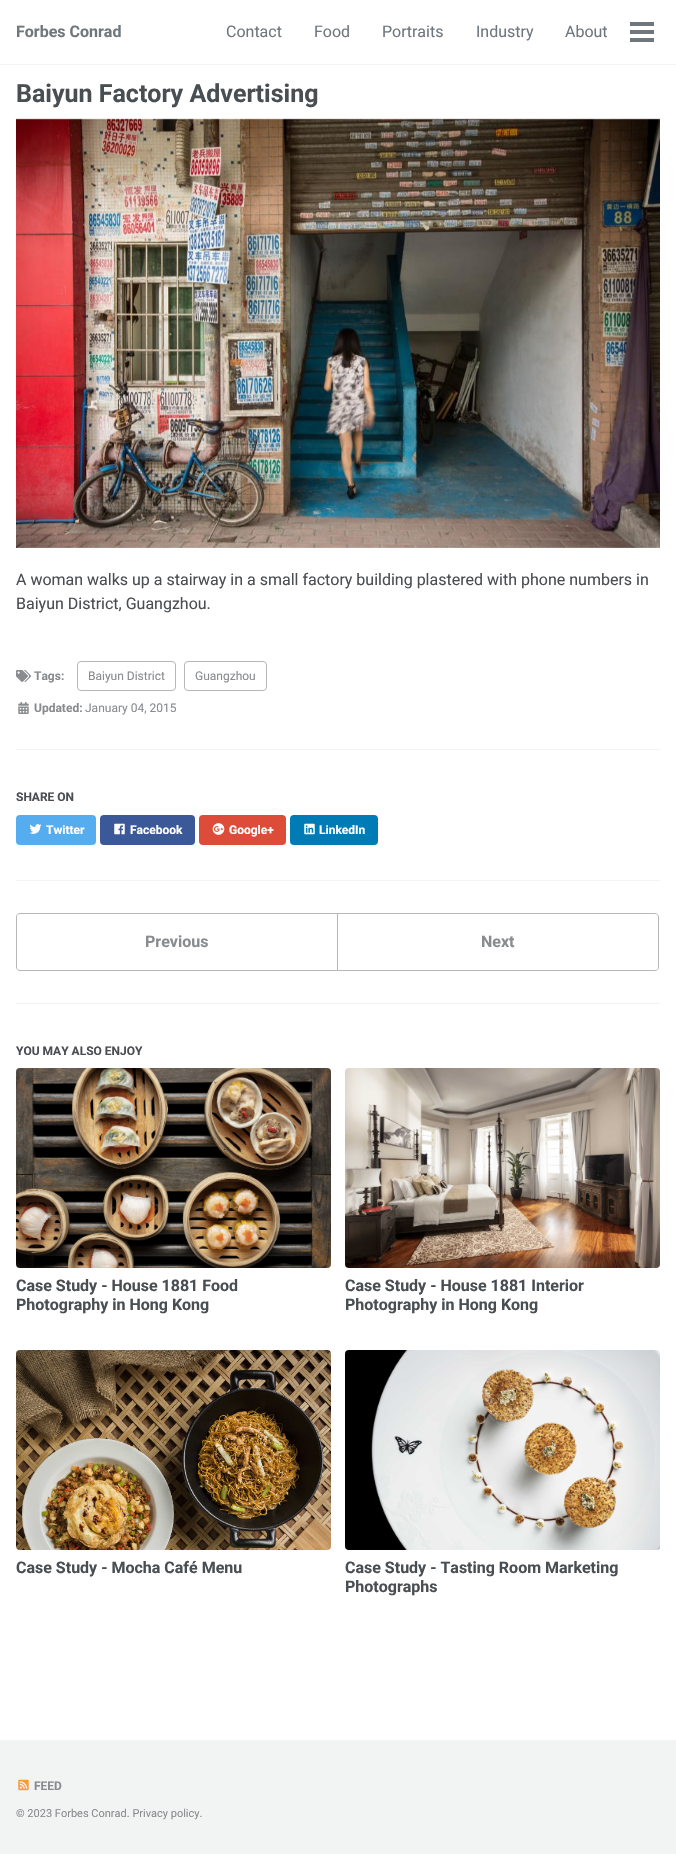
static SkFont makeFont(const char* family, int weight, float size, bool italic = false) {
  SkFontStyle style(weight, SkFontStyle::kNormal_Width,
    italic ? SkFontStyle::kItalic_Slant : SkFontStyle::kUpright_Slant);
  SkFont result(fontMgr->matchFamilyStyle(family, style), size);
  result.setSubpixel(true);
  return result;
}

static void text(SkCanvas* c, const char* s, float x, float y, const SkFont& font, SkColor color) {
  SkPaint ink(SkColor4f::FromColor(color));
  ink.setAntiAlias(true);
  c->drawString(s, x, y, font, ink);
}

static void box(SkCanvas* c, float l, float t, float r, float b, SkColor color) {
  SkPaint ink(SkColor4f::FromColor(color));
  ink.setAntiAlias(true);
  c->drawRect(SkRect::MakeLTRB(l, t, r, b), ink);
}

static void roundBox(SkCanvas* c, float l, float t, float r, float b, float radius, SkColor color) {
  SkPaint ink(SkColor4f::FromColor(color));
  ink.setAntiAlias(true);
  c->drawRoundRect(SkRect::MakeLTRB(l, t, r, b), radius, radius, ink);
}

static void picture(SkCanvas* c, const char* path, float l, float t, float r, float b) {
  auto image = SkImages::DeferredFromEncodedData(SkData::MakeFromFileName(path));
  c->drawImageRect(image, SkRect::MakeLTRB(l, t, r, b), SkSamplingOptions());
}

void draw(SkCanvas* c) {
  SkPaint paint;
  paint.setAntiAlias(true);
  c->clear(0xffffffff);
  box(c, 0, 64, 676, 65, 0xfff2f3f3);
  SkFont face1 = makeFont("Roboto", 700, 16);
  text(c, "Forbes Conrad", 16, 37, face1, 0xff6f777d);
  SkFont face2 = makeFont("Roboto", 400, 16);
  text(c, "Contact", 226, 37, face2, 0xff6f777d);
  text(c, "Food", 314, 37, face2, 0xff6f777d);
  text(c, "Portraits", 382, 37, face2, 0xff6f777d);
  text(c, "Industry", 476, 37, face2, 0xff6f777d);
  text(c, "About", 565, 37, face2, 0xff6f777d);
  box(c, 630, 30, 654, 34, 0xff6f777d);
  box(c, 630, 22, 654, 26, 0xff6f777d);
  box(c, 630, 38, 654, 42, 0xff6f777d);
  SkFont face3 = makeFont("Roboto", 700, 25);
  text(c, "Baiyun Factory Advertising", 16, 102, face3, 0xff494e52);
  picture(c, "img_01.png", 16, 118, 660, 548);
  text(c, "A woman walks up a stairway in a small factory building plastered with phone numbers in", 16, 585, face2, 0xff494e52);
  text(c, "Baiyun District, Guangzhou.", 16, 609, face2, 0xff494e52);
  picture(c, "img_02.png", 16, 670, 31, 682);
  SkFont face4 = makeFont("Roboto", 700, 12);
  text(c, "Tags:", 34, 680, face4, 0xff898c8f);
  paint.setStyle(SkPaint::kStroke_Style);
  paint.setStrokeWidth(1);
  paint.setColor(0xffb6b6b6);
  c->drawRoundRect(SkRect::MakeLTRB(77.5f, 661.5f, 175.5f, 690.5f), 3.5f, 3.5f, paint);
  SkFont face5 = makeFont("Roboto", 400, 12);
  text(c, "Baiyun District", 88, 680, face5, 0xff898c8f);
  c->drawRoundRect(SkRect::MakeLTRB(184.5f, 661.5f, 266.5f, 690.5f), 3.5f, 3.5f, paint);
  text(c, "Guangzhou", 195, 680, face5, 0xff898c8f);
  picture(c, "img_03.png", 18, 702, 29, 714);
  text(c, "Updated:", 34, 712, face4, 0xff898c8f);
  text(c, "January 04, 2015", 85, 712, face5, 0xff898c8f);
  box(c, 16, 749, 660, 750, 0xfff2f3f3);
  text(c, "SHARE ON", 16, 801, face4, 0xff494e52);
  roundBox(c, 16, 815, 96, 845, 4, 0xff55acee);
  picture(c, "img_04.png", 29, 824, 42, 834);
  text(c, "Twitter", 46, 834, face4, 0xffffffff);
  roundBox(c, 100, 815, 195, 845, 4, 0xff3b5998);
  picture(c, "img_05.png", 114, 823, 125, 835);
  text(c, "Facebook", 130, 834, face4, 0xffffffff);
  roundBox(c, 199, 815, 286, 845, 4, 0xffdd4b39);
  picture(c, "img_06.png", 212, 823, 225, 835);
  text(c, "Google+", 229, 834, face4, 0xffffffff);
  roundBox(c, 290, 815, 378, 845, 4, 0xff007bb6);
  picture(c, "img_07.png", 304, 823, 315, 835);
  text(c, "LinkedIn", 319, 834, face4, 0xffffffff);
  box(c, 16, 880, 660, 881, 0xfff2f3f3);
  c->drawPath(SkPathBuilder().moveTo(20, 913.5f).lineTo(337.5f, 913.5f).lineTo(337.5f, 970.5f).lineTo(20, 970.5f).cubicTo(18, 970.5f, 16.5f, 969, 16.5f, 967).lineTo(16.5f, 917).cubicTo(16.5f, 915, 18, 913.5f, 20, 913.5f).close().detach(), paint);
  text(c, "Previous", 145, 947, face1, 0xff898c8f);
  c->drawPath(SkPathBuilder().moveTo(337.5f, 913.5f).lineTo(655, 913.5f).cubicTo(657, 913.5f, 658.5f, 915, 658.5f, 917).lineTo(658.5f, 967).cubicTo(658.5f, 969, 657, 970.5f, 655, 970.5f).lineTo(337.5f, 970.5f).close().detach(), paint);
  text(c, "Next", 481, 947, face1, 0xff898c8f);
  box(c, 16, 1003, 660, 1004, 0xfff2f3f3);
  text(c, "YOU MAY ALSO ENJOY", 16, 1055, face4, 0xff494e52);
  picture(c, "img_08.png", 16, 1068, 331, 1268);
  text(c, "Case Study - House 1881 Food", 16, 1291, face1, 0xff494e52);
  text(c, "Photography in Hong Kong", 16, 1310, face1, 0xff494e52);
  picture(c, "img_09.png", 345, 1068, 660, 1268);
  text(c, "Case Study - House 1881 Interior", 345, 1291, face1, 0xff494e52);
  text(c, "Photography in Hong Kong", 345, 1310, face1, 0xff494e52);
  picture(c, "img_10.png", 16, 1350, 331, 1550);
  text(c, "Case Study - Mocha Café Menu", 16, 1573, face1, 0xff494e52);
  picture(c, "img_11.png", 345, 1350, 660, 1550);
  text(c, "Case Study - Tasting Room Marketing", 345, 1573, face1, 0xff494e52);
  text(c, "Photographs", 345, 1592, face1, 0xff494e52);
  box(c, 0, 1740, 676, 1854, 0xfff2f3f3);
  picture(c, "img_12.png", 18, 1779, 29, 1791);
  text(c, "FEED", 34, 1790, face4, 0xff898c8f);
  SkFont face6 = makeFont("Roboto", 400, 11);
  text(c, "© 2023 Forbes Conrad. Privacy policy.", 16, 1817, face6, 0xff898c8f);
}
